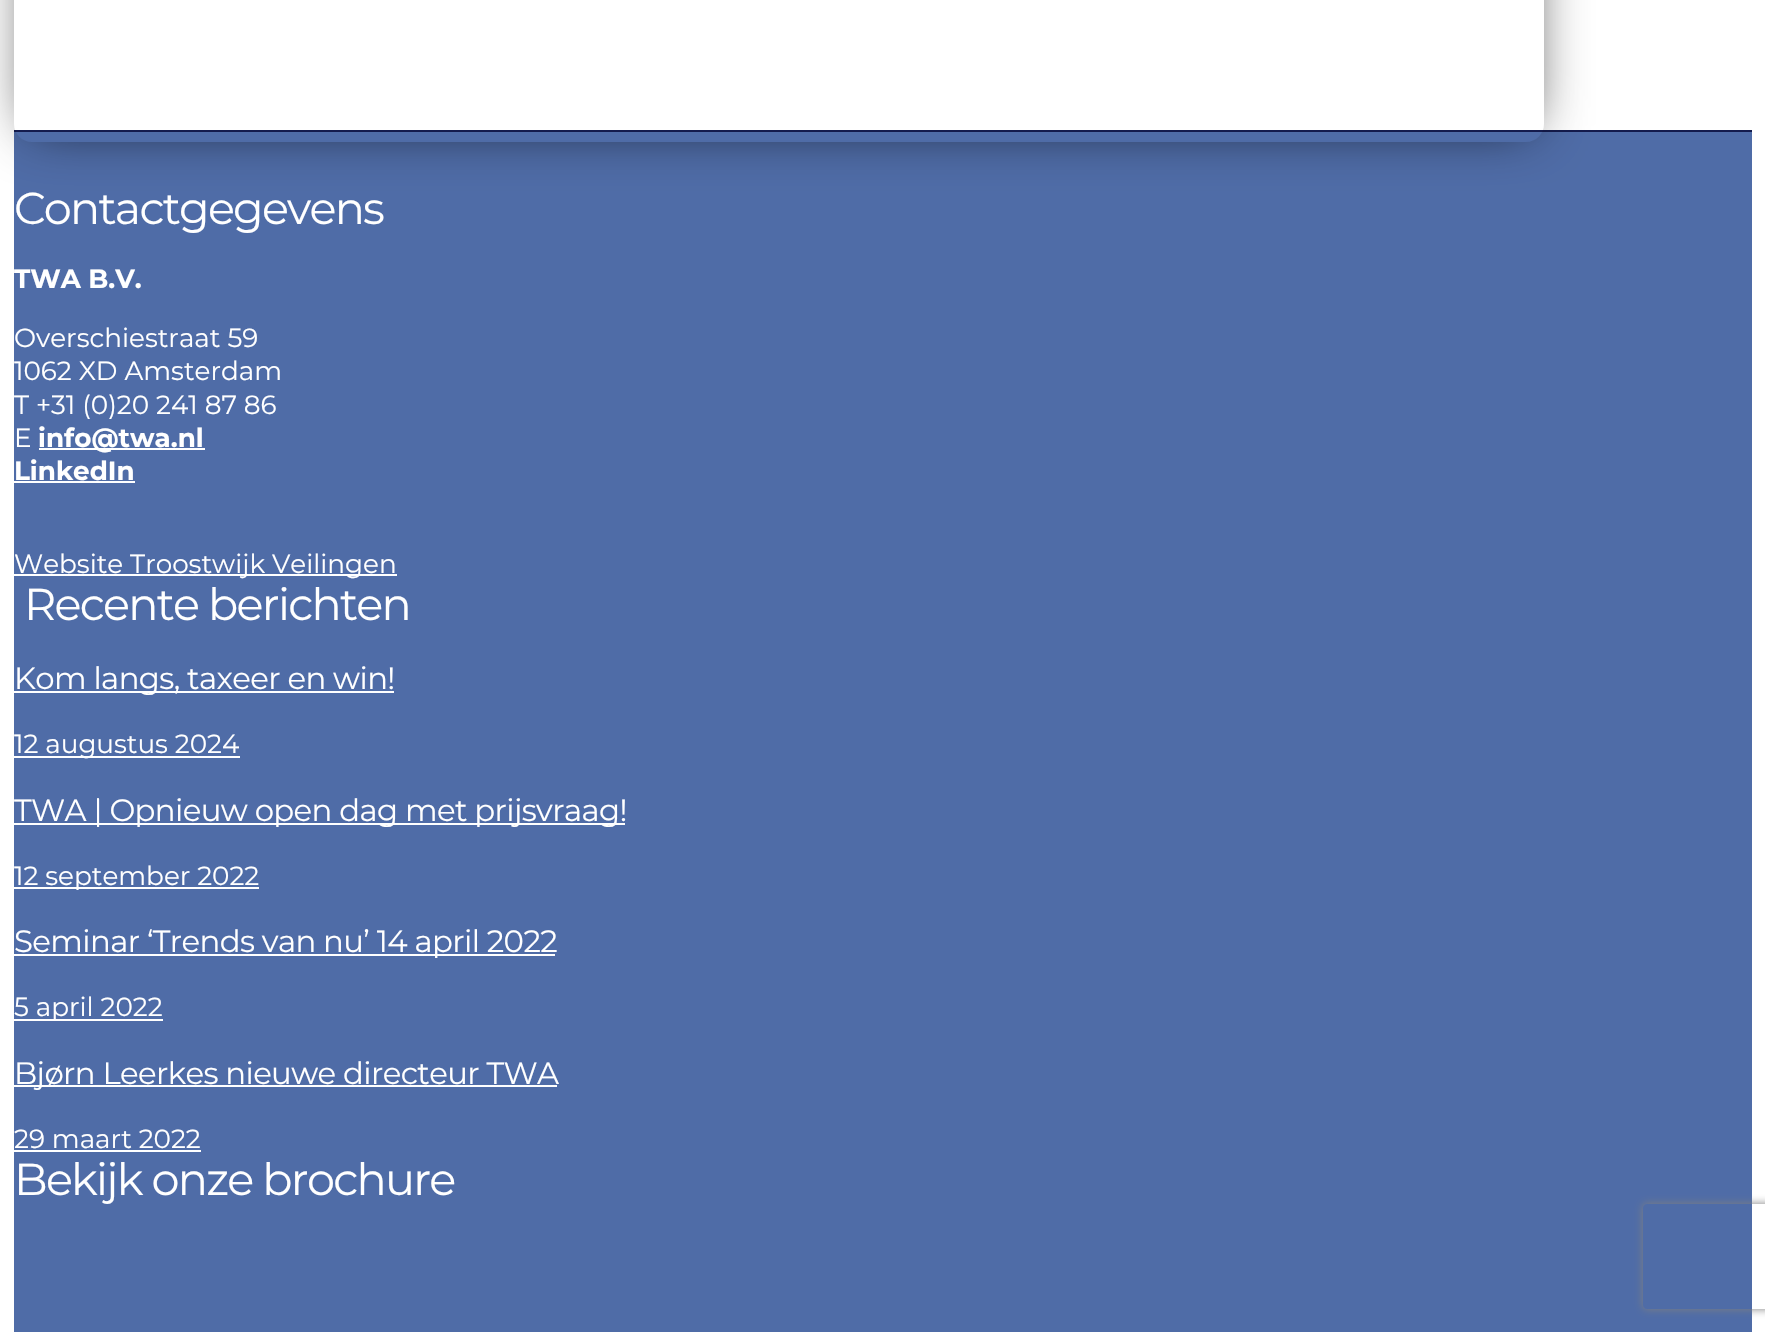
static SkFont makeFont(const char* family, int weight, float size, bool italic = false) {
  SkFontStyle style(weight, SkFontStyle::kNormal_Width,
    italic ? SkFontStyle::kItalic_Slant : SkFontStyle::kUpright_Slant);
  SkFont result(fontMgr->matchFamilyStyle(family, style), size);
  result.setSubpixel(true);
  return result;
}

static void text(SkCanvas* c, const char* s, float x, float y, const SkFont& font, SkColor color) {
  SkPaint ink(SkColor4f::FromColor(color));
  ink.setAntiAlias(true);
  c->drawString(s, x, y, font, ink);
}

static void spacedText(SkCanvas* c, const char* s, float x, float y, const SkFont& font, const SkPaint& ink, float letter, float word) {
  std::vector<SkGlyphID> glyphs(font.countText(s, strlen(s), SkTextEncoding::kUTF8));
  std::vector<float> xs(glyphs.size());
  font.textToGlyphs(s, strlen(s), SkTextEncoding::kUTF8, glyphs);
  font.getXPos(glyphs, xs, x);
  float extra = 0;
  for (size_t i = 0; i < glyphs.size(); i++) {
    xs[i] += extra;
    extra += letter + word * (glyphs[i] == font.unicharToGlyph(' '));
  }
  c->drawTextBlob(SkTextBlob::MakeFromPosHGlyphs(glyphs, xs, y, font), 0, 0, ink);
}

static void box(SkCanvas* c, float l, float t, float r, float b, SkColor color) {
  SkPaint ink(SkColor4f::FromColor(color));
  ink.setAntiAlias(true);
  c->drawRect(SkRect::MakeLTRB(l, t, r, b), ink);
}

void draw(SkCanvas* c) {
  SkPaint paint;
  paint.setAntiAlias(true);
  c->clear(0xffffffff);
  box(c, 14, 132, 1752, 1332, 0xff4f6ca7);
  box(c, 14, 130, 1752, 132, 0xff141b4d);
  c->save();
  c->clipPath(SkPathBuilder(SkPathFillType::kEvenOdd).moveTo(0, 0).lineTo(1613, 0).lineTo(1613, 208).lineTo(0, 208).close().moveTo(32, -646).lineTo(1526, -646).cubicTo(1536, -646, 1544, -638, 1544, -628).lineTo(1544, 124).cubicTo(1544, 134, 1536, 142, 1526, 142).lineTo(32, 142).cubicTo(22, 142, 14, 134, 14, 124).lineTo(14, -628).cubicTo(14, -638, 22, -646, 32, -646).close().detach(), true);
  paint.setColor(0xc2000000);
  paint.setMaskFilter(SkMaskFilter::MakeBlur(kNormal_SkBlurStyle, 27));
  c->drawRoundRect(SkRect::MakeLTRB(30, -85, 1531, 126), 4, 4, paint);
  paint.setMaskFilter(nullptr);
  c->restore();
  SkFont face1 = makeFont("Montserrat", 400, 44.6f);
  paint.setColor(0xffffffff);
  spacedText(c, "Contactgegevens", 14, 224, face1, paint, -1.75f, 0);
  SkFont face2 = makeFont("Montserrat", 700, 26.25f);
  text(c, "TWA B.V.", 14, 288, face2, 0xffffffff);
  SkFont face3 = makeFont("Montserrat", 400, 26.25f);
  text(c, "Overschiestraat 59", 14, 347, face3, 0xffffffff);
  text(c, "1062 XD Amsterdam", 14, 380, face3, 0xffffffff);
  text(c, "T +31 (0)20 241 87 86", 14, 414, face3, 0xffffffff);
  text(c, "E", 14, 447, face3, 0xffffffff);
  box(c, 39, 448, 205, 450, 0xffffffff);
  text(c, "info@twa.nl", 38, 447, face2, 0xffffffff);
  text(c, "LinkedIn", 14, 480, face2, 0xffffffff);
  box(c, 14, 481, 135, 483, 0xffffffff);
  box(c, 14, 574, 397, 576, 0xffffffff);
  text(c, "Website Troostwijk Veilingen", 14, 573, face3, 0xffffffff);
  spacedText(c, "Recente berichten", 24, 620, face1, paint, -1.75f, 0);
  box(c, 14, 691, 394, 693, 0xffffffff);
  SkFont face4 = makeFont("Montserrat", 400, 30.75f);
  spacedText(c, "Kom langs, taxeer en win!", 14, 689, face4, paint, -0.6f, 0);
  box(c, 14, 756, 240, 758, 0xffffffff);
  text(c, "12 augustus 2024", 14, 753, face3, 0xffffffff);
  box(c, 14, 823, 625, 825, 0xffffffff);
  spacedText(c, "TWA | Opnieuw open dag met prijsvraag!", 14, 821, face4, paint, -0.6f, 0);
  box(c, 14, 887, 259, 889, 0xffffffff);
  text(c, "12 september 2022", 14, 885, face3, 0xffffffff);
  box(c, 14, 954, 555, 956, 0xffffffff);
  spacedText(c, "Seminar ‘Trends van nu’ 14 april 2022", 14, 952, face4, paint, -0.6f, 0);
  box(c, 14, 1019, 163, 1021, 0xffffffff);
  text(c, "5 april 2022", 14, 1016, face3, 0xffffffff);
  box(c, 14, 1085, 557, 1087, 0xffffffff);
  spacedText(c, "Bjørn Leerkes nieuwe directeur TWA", 14, 1084, face4, paint, -0.6f, 0);
  text(c, "29 maart 2022", 14, 1148, face3, 0xffffffff);
  box(c, 14, 1150, 201, 1152, 0xffffffff);
  spacedText(c, "Bekijk onze brochure", 14, 1195, face1, paint, -1.75f, 0);
  c->save();
  c->clipPath(SkPathBuilder(SkPathFillType::kEvenOdd).moveTo(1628, 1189).lineTo(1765, 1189).lineTo(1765, 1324).lineTo(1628, 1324).close().moveTo(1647, 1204).lineTo(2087, 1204).cubicTo(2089, 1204, 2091, 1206, 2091, 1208).lineTo(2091, 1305).cubicTo(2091, 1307, 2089, 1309, 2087, 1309).lineTo(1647, 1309).cubicTo(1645, 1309, 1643, 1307, 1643, 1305).lineTo(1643, 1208).cubicTo(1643, 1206, 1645, 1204, 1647, 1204).close().detach(), true);
  paint.setColor(0xff808080);
  paint.setMaskFilter(SkMaskFilter::MakeBlur(kNormal_SkBlurStyle, 4.5f));
  c->drawRoundRect(SkRect::MakeLTRB(1643, 1204, 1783, 1309), 4, 4, paint);
  paint.setMaskFilter(nullptr);
  c->restore();
}
